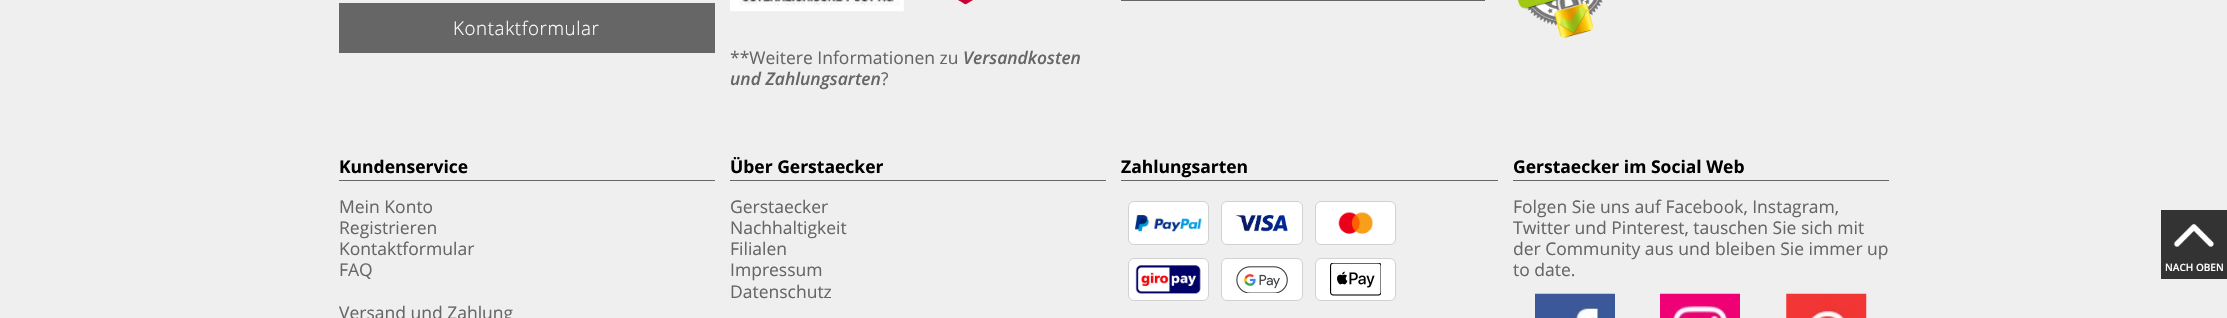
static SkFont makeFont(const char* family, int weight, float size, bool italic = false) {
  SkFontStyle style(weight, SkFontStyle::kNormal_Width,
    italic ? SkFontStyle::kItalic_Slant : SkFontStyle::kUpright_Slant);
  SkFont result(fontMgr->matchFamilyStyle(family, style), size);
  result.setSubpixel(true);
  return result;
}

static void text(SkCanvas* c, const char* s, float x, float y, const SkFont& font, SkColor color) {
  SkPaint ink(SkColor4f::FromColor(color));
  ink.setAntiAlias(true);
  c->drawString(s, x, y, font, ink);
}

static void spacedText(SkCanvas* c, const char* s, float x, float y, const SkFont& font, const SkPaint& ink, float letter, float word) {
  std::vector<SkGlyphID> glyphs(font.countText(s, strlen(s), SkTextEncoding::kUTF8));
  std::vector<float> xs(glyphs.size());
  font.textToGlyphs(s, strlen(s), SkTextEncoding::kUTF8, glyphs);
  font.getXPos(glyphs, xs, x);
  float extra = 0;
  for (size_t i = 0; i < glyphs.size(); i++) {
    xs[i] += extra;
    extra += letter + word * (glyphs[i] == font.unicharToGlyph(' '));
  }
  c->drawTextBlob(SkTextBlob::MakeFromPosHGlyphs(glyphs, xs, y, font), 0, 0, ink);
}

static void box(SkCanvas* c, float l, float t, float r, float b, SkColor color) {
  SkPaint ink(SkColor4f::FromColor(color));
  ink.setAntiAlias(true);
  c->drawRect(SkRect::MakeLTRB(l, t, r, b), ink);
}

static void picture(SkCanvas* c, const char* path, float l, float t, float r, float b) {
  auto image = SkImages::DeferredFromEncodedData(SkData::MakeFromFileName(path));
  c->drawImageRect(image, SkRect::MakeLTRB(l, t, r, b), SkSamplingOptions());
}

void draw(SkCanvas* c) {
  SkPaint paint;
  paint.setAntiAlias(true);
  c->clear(0xffefefef);
  box(c, 339, 3, 715, 53, 0xff666666);
  SkFont face1 = makeFont("Open Sans", 300, 18.75f);
  paint.setColor(0xffffffff);
  spacedText(c, "Kontaktformular", 453, 35, face1, paint, 0.6f, 0);
  paint.setStyle(SkPaint::kStroke_Style);
  paint.setStrokeWidth(1);
  paint.setColor(0xff666666);
  c->drawRect(SkRect::MakeLTRB(1121.5f, -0.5f, 1484.5f, 0.5f), paint);
  picture(c, "img_01.png", 1517, 0, 1603, 38);
  picture(c, "img_02.png", 730, 0, 904, 12);
  picture(c, "img_03.png", 957, 0, 975, 5);
  SkFont face2 = makeFont("Open Sans", 400, 17.5f);
  text(c, "**Weitere Informationen zu", 730, 64, face2, 0xff666666);
  SkFont face3 = makeFont("Open Sans", 600, 17.5f, true);
  text(c, "Versandkosten", 963, 64, face3, 0xff666666);
  text(c, "und Zahlungsarten", 730, 85, face3, 0xff666666);
  text(c, "?", 881, 85, face2, 0xff666666);
  box(c, 339, 180, 715, 181, 0xff666666);
  SkFont face4 = makeFont("Open Sans", 700, 17.5f);
  text(c, "Kundenservice", 339, 173, face4, 0xff000000);
  text(c, "Mein Konto", 339, 213, face2, 0xff666666);
  text(c, "Registrieren", 339, 234, face2, 0xff666666);
  text(c, "Kontaktformular", 339, 255, face2, 0xff666666);
  text(c, "FAQ", 339, 276, face2, 0xff666666);
  text(c, "Versand und Zahlung", 339, 319, face2, 0xff666666);
  box(c, 730, 180, 1106, 181, 0xff666666);
  text(c, "Über Gerstaecker", 730, 173, face4, 0xff000000);
  text(c, "Gerstaecker", 730, 213, face2, 0xff666666);
  text(c, "Nachhaltigkeit", 730, 234, face2, 0xff666666);
  text(c, "Filialen", 730, 255, face2, 0xff666666);
  text(c, "Impressum", 730, 276, face2, 0xff666666);
  text(c, "Datenschutz", 730, 298, face2, 0xff666666);
  box(c, 1121, 180, 1498, 181, 0xff666666);
  text(c, "Zahlungsarten", 1121, 173, face4, 0xff000000);
  paint.setStyle(SkPaint::kFill_Style);
  paint.setColor(0xffffffff);
  c->drawRoundRect(SkRect::MakeLTRB(1128.5f, 201.5f, 1208.5f, 244.5f), 5.5f, 5.5f, paint);
  paint.setStyle(SkPaint::kStroke_Style);
  paint.setColor(0xffd1d1d1);
  c->drawRoundRect(SkRect::MakeLTRB(1128.5f, 201.5f, 1208.5f, 244.5f), 5.5f, 5.5f, paint);
  picture(c, "img_04.png", 1135, 215, 1202, 232);
  paint.setStyle(SkPaint::kFill_Style);
  paint.setColor(0xffffffff);
  c->drawRoundRect(SkRect::MakeLTRB(1221.5f, 201.5f, 1302.5f, 244.5f), 5.5f, 5.5f, paint);
  paint.setStyle(SkPaint::kStroke_Style);
  paint.setColor(0xffd1d1d1);
  c->drawRoundRect(SkRect::MakeLTRB(1221.5f, 201.5f, 1302.5f, 244.5f), 5.5f, 5.5f, paint);
  picture(c, "img_05.png", 1236, 215, 1288, 232);
  paint.setStyle(SkPaint::kFill_Style);
  paint.setColor(0xffffffff);
  c->drawRoundRect(SkRect::MakeLTRB(1315.5f, 201.5f, 1395.5f, 244.5f), 5.5f, 5.5f, paint);
  paint.setStyle(SkPaint::kStroke_Style);
  paint.setColor(0xffd1d1d1);
  c->drawRoundRect(SkRect::MakeLTRB(1315.5f, 201.5f, 1395.5f, 244.5f), 5.5f, 5.5f, paint);
  picture(c, "img_06.png", 1338, 212, 1373, 234);
  paint.setStyle(SkPaint::kFill_Style);
  paint.setColor(0xffffffff);
  c->drawRoundRect(SkRect::MakeLTRB(1128.5f, 258.5f, 1208.5f, 300.5f), 5.5f, 5.5f, paint);
  paint.setStyle(SkPaint::kStroke_Style);
  paint.setColor(0xffd1d1d1);
  c->drawRoundRect(SkRect::MakeLTRB(1128.5f, 258.5f, 1208.5f, 300.5f), 5.5f, 5.5f, paint);
  picture(c, "img_07.png", 1135, 265, 1201, 294);
  paint.setStyle(SkPaint::kFill_Style);
  paint.setColor(0xffffffff);
  c->drawRoundRect(SkRect::MakeLTRB(1221.5f, 258.5f, 1302.5f, 300.5f), 5.5f, 5.5f, paint);
  paint.setStyle(SkPaint::kStroke_Style);
  paint.setColor(0xffd1d1d1);
  c->drawRoundRect(SkRect::MakeLTRB(1221.5f, 258.5f, 1302.5f, 300.5f), 5.5f, 5.5f, paint);
  picture(c, "img_08.png", 1236, 266, 1288, 293);
  paint.setStyle(SkPaint::kFill_Style);
  paint.setColor(0xffffffff);
  c->drawRoundRect(SkRect::MakeLTRB(1315.5f, 258.5f, 1395.5f, 300.5f), 5.5f, 5.5f, paint);
  paint.setStyle(SkPaint::kStroke_Style);
  paint.setColor(0xffd1d1d1);
  c->drawRoundRect(SkRect::MakeLTRB(1315.5f, 258.5f, 1395.5f, 300.5f), 5.5f, 5.5f, paint);
  picture(c, "img_09.png", 1330, 263, 1381, 296);
  box(c, 1513, 180, 1889, 181, 0xff666666);
  text(c, "Gerstaecker im Social Web", 1513, 173, face4, 0xff000000);
  text(c, "Folgen Sie uns auf Facebook, Instagram,", 1513, 213, face2, 0xff666666);
  text(c, "Twitter und Pinterest, tauschen Sie sich mit", 1513, 234, face2, 0xff666666);
  text(c, "der Community aus und bleiben Sie immer up", 1513, 255, face2, 0xff666666);
  text(c, "to date.", 1513, 276, face2, 0xff666666);
  picture(c, "img_10.png", 1535, 293, 1615, 318);
  picture(c, "img_11.png", 1660, 293, 1740, 318);
  picture(c, "img_12.png", 1786, 293, 1867, 318);
  box(c, 2161, 210, 2227, 279, 0xff333333);
  picture(c, "img_13.png", 2173, 224, 2214, 247);
  SkFont face5 = makeFont("Open Sans", 600, 10);
  text(c, "NACH OBEN", 2165, 271, face5, 0xffffffff);
}
